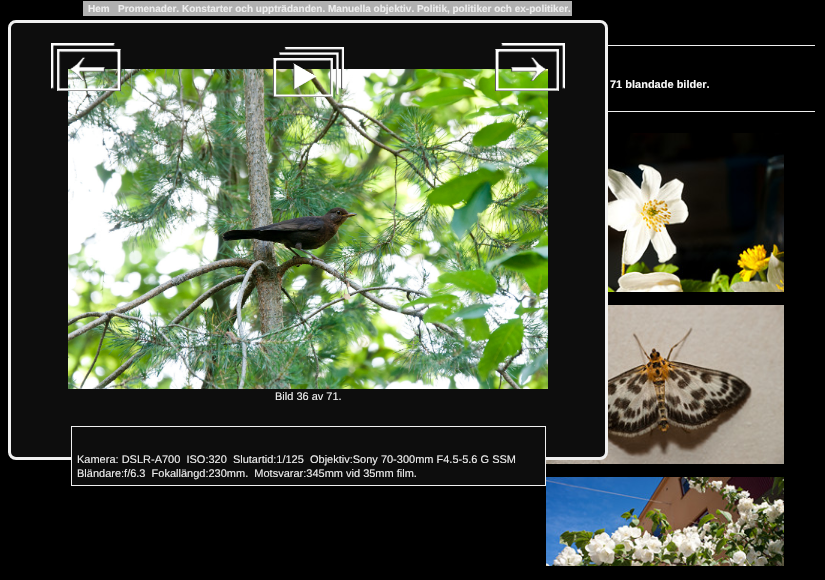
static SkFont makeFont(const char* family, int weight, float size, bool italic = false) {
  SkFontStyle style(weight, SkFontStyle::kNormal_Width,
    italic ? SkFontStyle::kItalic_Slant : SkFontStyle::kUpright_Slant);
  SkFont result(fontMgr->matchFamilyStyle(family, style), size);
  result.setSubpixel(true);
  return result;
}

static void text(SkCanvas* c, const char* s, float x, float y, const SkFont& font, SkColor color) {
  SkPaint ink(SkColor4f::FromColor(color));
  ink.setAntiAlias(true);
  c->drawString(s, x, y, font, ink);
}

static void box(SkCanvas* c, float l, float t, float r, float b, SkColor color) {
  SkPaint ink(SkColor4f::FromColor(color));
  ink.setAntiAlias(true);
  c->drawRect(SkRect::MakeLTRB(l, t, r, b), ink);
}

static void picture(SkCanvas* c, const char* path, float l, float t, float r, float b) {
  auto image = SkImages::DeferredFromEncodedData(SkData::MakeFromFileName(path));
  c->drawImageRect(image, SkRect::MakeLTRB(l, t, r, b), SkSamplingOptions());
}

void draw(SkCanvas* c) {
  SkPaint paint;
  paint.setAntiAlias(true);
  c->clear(0xff000000);
  box(c, 83, 1, 572, 16, 0xffb0b0b0);
  SkFont face1 = makeFont("Liberation Sans", 700, 10);
  text(c, "Hem", 88, 12, face1, 0xffededed);
  text(c, "Promenader. Konstarter och uppträdanden. Manuella objektiv. Politik, politiker och ex-politiker.", 118, 12, face1, 0xffededed);
  box(c, 608, 45, 815, 46, 0xffeeeeee);
  SkFont face2 = makeFont("Liberation Sans", 700, 11);
  text(c, "71 blandade bilder.", 610, 88, face2, 0xfff8f8f8);
  box(c, 608, 111, 815, 112, 0xffeeeeee);
  picture(c, "img_01.png", 608, 133, 784, 292);
  picture(c, "img_02.png", 546, 305, 784, 464);
  picture(c, "img_03.png", 546, 477, 784, 566);
  paint.setColor(0xff0d0d0d);
  c->drawRoundRect(SkRect::MakeLTRB(9.5f, 21.5f, 606.5f, 458.5f), 6.5f, 6.5f, paint);
  paint.setStyle(SkPaint::kStroke_Style);
  paint.setStrokeWidth(3);
  paint.setColor(0xfff0f0f0);
  c->drawRoundRect(SkRect::MakeLTRB(9.5f, 21.5f, 606.5f, 458.5f), 6.5f, 6.5f, paint);
  picture(c, "img_07.png", 68, 69, 548, 389);
  picture(c, "img_04.png", 51, 43, 121, 91);
  picture(c, "img_05.png", 273, 47, 344, 97);
  picture(c, "img_06.png", 495, 43, 565, 91);
  SkFont face3 = makeFont("Liberation Sans", 400, 11);
  text(c, "Bild 36 av 71.", 275, 400, face3, 0xffededed);
  box(c, 72, 457, 545, 485, 0xff0d0d0d);
  paint.setStrokeWidth(1);
  c->drawRect(SkRect::MakeLTRB(71.5f, 426.5f, 545.5f, 485.5f), paint);
  text(c, "Kamera: DSLR-A700  ISO:320  Slutartid:1/125  Objektiv:Sony 70-300mm F4.5-5.6 G SSM", 77, 463, face3, 0xffededed);
  text(c, "Bländare:f/6.3  Fokallängd:230mm.  Motsvarar:345mm vid 35mm film.", 77, 477, face3, 0xffededed);
}
